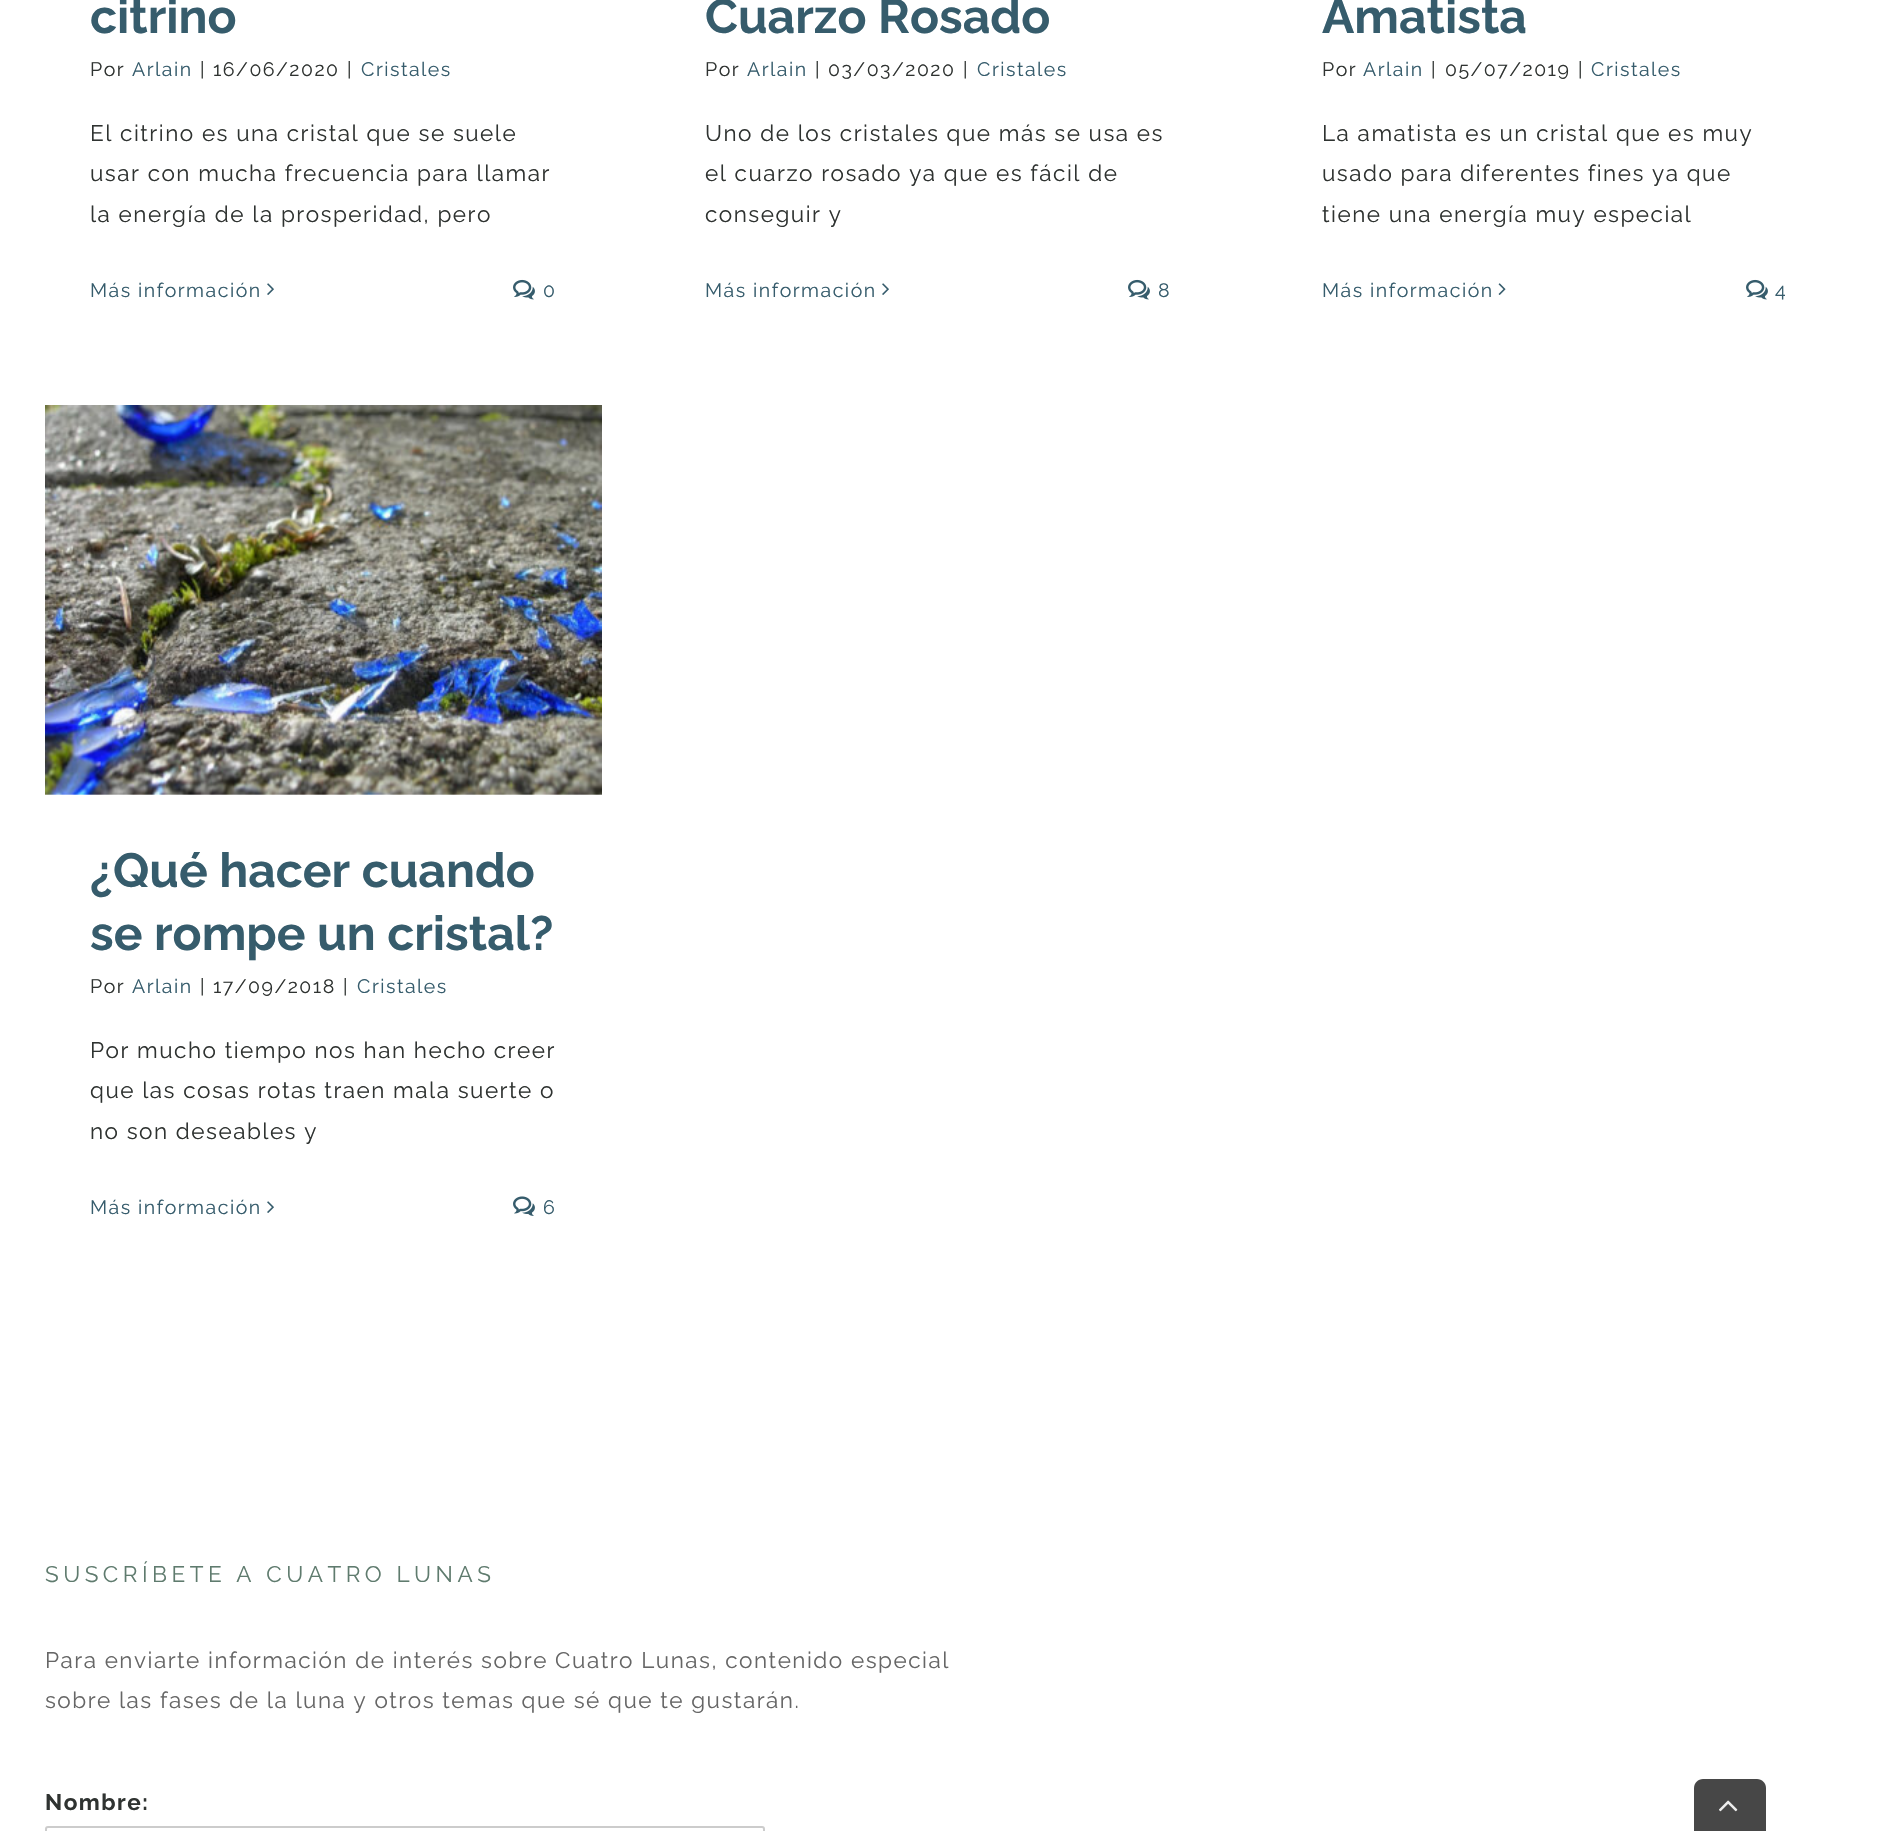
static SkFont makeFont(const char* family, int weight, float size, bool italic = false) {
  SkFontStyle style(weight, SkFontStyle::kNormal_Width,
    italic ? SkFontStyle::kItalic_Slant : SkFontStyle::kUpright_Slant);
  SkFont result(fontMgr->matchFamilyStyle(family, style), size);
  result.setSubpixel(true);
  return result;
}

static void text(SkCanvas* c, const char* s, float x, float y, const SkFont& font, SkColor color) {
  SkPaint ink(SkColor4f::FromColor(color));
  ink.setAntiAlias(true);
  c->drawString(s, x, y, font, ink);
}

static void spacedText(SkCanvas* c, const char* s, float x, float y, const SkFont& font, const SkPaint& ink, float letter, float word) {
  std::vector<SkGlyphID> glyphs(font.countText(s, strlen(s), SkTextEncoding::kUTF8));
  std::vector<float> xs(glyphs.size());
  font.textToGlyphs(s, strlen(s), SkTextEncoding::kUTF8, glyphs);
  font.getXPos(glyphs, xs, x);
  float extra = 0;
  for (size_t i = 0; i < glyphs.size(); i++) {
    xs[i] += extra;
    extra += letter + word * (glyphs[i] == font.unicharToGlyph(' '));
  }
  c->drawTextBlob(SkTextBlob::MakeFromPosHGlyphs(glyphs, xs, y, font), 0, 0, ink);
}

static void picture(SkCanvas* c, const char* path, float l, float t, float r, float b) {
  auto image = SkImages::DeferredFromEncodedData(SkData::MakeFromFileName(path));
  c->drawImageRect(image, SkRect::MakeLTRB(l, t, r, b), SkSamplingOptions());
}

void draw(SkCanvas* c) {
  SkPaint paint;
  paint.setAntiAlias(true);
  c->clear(0xffffffff);
  SkFont face1 = makeFont("Raleway", 700, 48);
  text(c, "citrino", 90, 33, face1, 0xff365c6c);
  SkFont face2 = makeFont("Raleway", 400, 19.5f);
  paint.setColor(0xff2f3331);
  spacedText(c, "Por", 90, 76, face2, paint, 1.5f, 0);
  paint.setColor(0xff365c6c);
  spacedText(c, "Arlain", 132, 76, face2, paint, 1.5f, 0);
  paint.setColor(0xff2f3331);
  spacedText(c, "|", 200, 76, face2, paint, 1.5f, 0);
  spacedText(c, "16/06/2020", 213, 76, face2, paint, 1.5f, 0);
  spacedText(c, "|", 347, 76, face2, paint, 1.5f, 0);
  paint.setColor(0xff365c6c);
  spacedText(c, "Cristales", 361, 76, face2, paint, 1.5f, 0);
  SkFont face3 = makeFont("Raleway", 400, 22.5f);
  paint.setColor(0xff2f3331);
  spacedText(c, "El citrino es una cristal que se suele", 90, 141, face3, paint, 1.5f, 0);
  spacedText(c, "usar con mucha frecuencia para llamar", 90, 181, face3, paint, 1.5f, 0);
  spacedText(c, "la energía de la prosperidad, pero", 90, 222, face3, paint, 1.5f, 0);
  paint.setColor(0xff365c6c);
  spacedText(c, "Más información", 90, 297, face2, paint, 1.5f, 0);
  picture(c, "img_01.png", 267, 283, 274, 295);
  picture(c, "img_02.png", 513, 279, 535, 300);
  spacedText(c, "0", 543, 297, face2, paint, 1.5f, 0);
  text(c, "Cuarzo Rosado", 705, 33, face1, 0xff365c6c);
  paint.setColor(0xff2f3331);
  spacedText(c, "Por", 705, 76, face2, paint, 1.5f, 0);
  paint.setColor(0xff365c6c);
  spacedText(c, "Arlain", 747, 76, face2, paint, 1.5f, 0);
  paint.setColor(0xff2f3331);
  spacedText(c, "|", 815, 76, face2, paint, 1.5f, 0);
  spacedText(c, "03/03/2020", 828, 76, face2, paint, 1.5f, 0);
  spacedText(c, "|", 963, 76, face2, paint, 1.5f, 0);
  paint.setColor(0xff365c6c);
  spacedText(c, "Cristales", 977, 76, face2, paint, 1.5f, 0);
  paint.setColor(0xff2f3331);
  spacedText(c, "Uno de los cristales que más se usa es", 705, 141, face3, paint, 1.5f, 0);
  spacedText(c, "el cuarzo rosado ya que es fácil de", 705, 181, face3, paint, 1.5f, 0);
  spacedText(c, "conseguir y", 705, 222, face3, paint, 1.5f, 0);
  paint.setColor(0xff365c6c);
  spacedText(c, "Más información", 705, 297, face2, paint, 1.5f, 0);
  picture(c, "img_01.png", 882, 283, 889, 295);
  picture(c, "img_02.png", 1128, 279, 1150, 300);
  spacedText(c, "8", 1158, 297, face2, paint, 1.5f, 0);
  text(c, "Amatista", 1322, 33, face1, 0xff365c6c);
  paint.setColor(0xff2f3331);
  spacedText(c, "Por", 1322, 76, face2, paint, 1.5f, 0);
  paint.setColor(0xff365c6c);
  spacedText(c, "Arlain", 1363, 76, face2, paint, 1.5f, 0);
  paint.setColor(0xff2f3331);
  spacedText(c, "|", 1431, 76, face2, paint, 1.5f, 0);
  spacedText(c, "05/07/2019", 1445, 76, face2, paint, 1.5f, 0);
  spacedText(c, "|", 1578, 76, face2, paint, 1.5f, 0);
  paint.setColor(0xff365c6c);
  spacedText(c, "Cristales", 1591, 76, face2, paint, 1.5f, 0);
  paint.setColor(0xff2f3331);
  spacedText(c, "La amatista es un cristal que es muy", 1322, 141, face3, paint, 1.5f, 0);
  spacedText(c, "usado para diferentes fines ya que", 1322, 181, face3, paint, 1.5f, 0);
  spacedText(c, "tiene una energía muy especial", 1322, 222, face3, paint, 1.5f, 0);
  paint.setColor(0xff365c6c);
  spacedText(c, "Más información", 1322, 297, face2, paint, 1.5f, 0);
  picture(c, "img_03.png", 1498, 283, 1506, 295);
  picture(c, "img_02.png", 1746, 279, 1768, 300);
  spacedText(c, "4", 1775, 297, face2, paint, 1.5f, 0);
  picture(c, "img_04.png", 45, 405, 602, 795);
  text(c, "¿Qué hacer cuando", 90, 887, face1, 0xff365c6c);
  text(c, "se rompe un cristal?", 90, 950, face1, 0xff365c6c);
  paint.setColor(0xff2f3331);
  spacedText(c, "Por", 90, 993, face2, paint, 1.5f, 0);
  paint.setColor(0xff365c6c);
  spacedText(c, "Arlain", 132, 993, face2, paint, 1.5f, 0);
  paint.setColor(0xff2f3331);
  spacedText(c, "|", 200, 993, face2, paint, 1.5f, 0);
  spacedText(c, "17/09/2018", 213, 993, face2, paint, 1.5f, 0);
  spacedText(c, "|", 343, 993, face2, paint, 1.5f, 0);
  paint.setColor(0xff365c6c);
  spacedText(c, "Cristales", 357, 993, face2, paint, 1.5f, 0);
  paint.setColor(0xff2f3331);
  spacedText(c, "Por mucho tiempo nos han hecho creer", 90, 1058, face3, paint, 1.5f, 0);
  spacedText(c, "que las cosas rotas traen mala suerte o", 90, 1098, face3, paint, 1.5f, 0);
  spacedText(c, "no son deseables y", 90, 1139, face3, paint, 1.5f, 0);
  paint.setColor(0xff365c6c);
  spacedText(c, "Más información", 90, 1214, face2, paint, 1.5f, 0);
  picture(c, "img_01.png", 267, 1201, 274, 1213);
  picture(c, "img_05.png", 513, 1196, 535, 1216);
  spacedText(c, "6", 543, 1214, face2, paint, 1.5f, 0);
  paint.setColor(0xff5f7b6e);
  spacedText(c, "SUSCRÍBETE A CUATRO LUNAS", 45, 1582, face3, paint, 4.5f, 0);
  paint.setColor(0xff666666);
  spacedText(c, "Para enviarte información de interés sobre Cuatro Lunas, contenido especial", 45, 1668, face3, paint, 1.5f, 0);
  spacedText(c, "sobre las fases de la luna y otros temas que sé que te gustarán.", 45, 1708, face3, paint, 1.5f, 0);
  SkFont face4 = makeFont("Raleway", 700, 22.5f);
  paint.setColor(0xff2f3331);
  spacedText(c, "Nombre:", 45, 1810, face4, paint, 1.5f, 0);
  paint.setStyle(SkPaint::kStroke_Style);
  paint.setStrokeWidth(2);
  paint.setColor(0xffcccccc);
  c->drawRoundRect(SkRect::MakeLTRB(46, 1827, 764, 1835), 2, 2, paint);
  paint.setStyle(SkPaint::kFill_Style);
  paint.setColor(0xff474747);
  c->drawPath(SkPathBuilder().moveTo(1703, 1779).lineTo(1757, 1779).cubicTo(1762, 1779, 1766, 1783, 1766, 1788).lineTo(1766, 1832).lineTo(1694, 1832).lineTo(1694, 1788).cubicTo(1694, 1783, 1698, 1779, 1703, 1779).close().detach(), paint);
  picture(c, "img_06.png", 1719, 1800, 1738, 1812);
}
